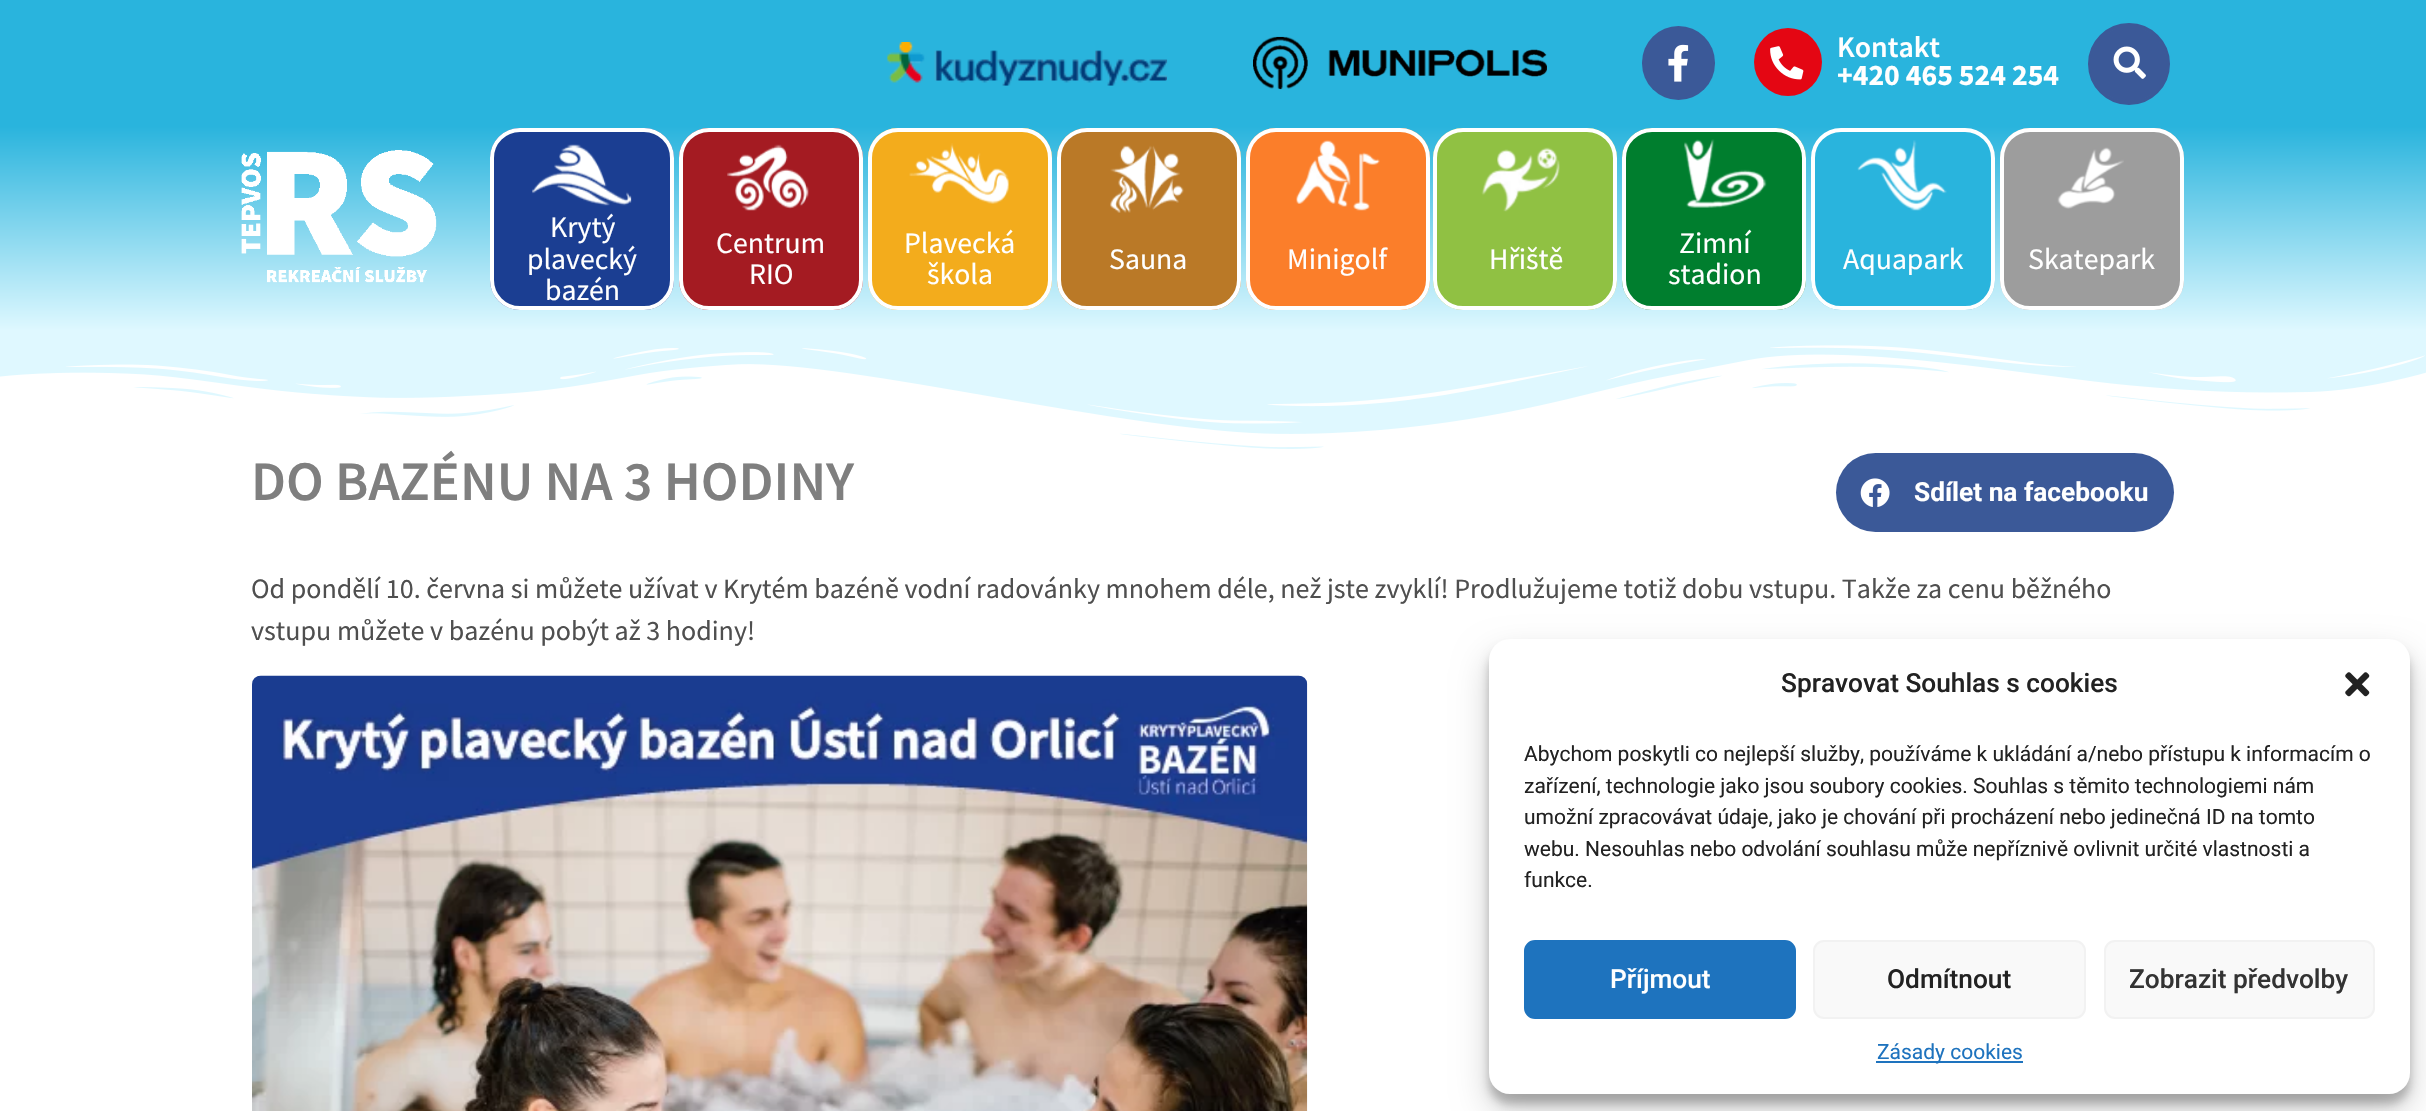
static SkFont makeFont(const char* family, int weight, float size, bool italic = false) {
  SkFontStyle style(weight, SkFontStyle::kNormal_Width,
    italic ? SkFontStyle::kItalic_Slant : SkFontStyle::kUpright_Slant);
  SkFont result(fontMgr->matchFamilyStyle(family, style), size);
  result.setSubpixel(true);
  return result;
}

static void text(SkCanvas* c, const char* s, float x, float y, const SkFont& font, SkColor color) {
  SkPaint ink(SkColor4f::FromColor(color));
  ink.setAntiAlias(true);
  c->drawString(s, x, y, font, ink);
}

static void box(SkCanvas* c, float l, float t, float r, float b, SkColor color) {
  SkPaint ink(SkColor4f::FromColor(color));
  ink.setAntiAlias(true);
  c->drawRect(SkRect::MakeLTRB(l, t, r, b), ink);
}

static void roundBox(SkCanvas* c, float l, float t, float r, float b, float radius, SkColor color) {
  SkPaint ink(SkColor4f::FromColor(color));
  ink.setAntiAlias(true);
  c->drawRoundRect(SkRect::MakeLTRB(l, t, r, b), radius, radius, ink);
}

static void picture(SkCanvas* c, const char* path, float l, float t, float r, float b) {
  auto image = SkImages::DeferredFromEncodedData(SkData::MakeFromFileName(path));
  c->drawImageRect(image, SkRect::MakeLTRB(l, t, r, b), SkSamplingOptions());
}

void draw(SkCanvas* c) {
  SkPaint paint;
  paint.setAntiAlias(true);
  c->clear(0xffffffff);
  box(c, 0, 0, 2426, 126, 0xff29b4dd);
  picture(c, "img_01.png", 887, 42, 1168, 86);
  picture(c, "img_02.png", 1253, 36, 1547, 90);
  roundBox(c, 1642, 26, 1715, 100, 36.5f, 0xff3b5998);
  picture(c, "img_03.png", 1668, 44, 1689, 82);
  paint.setColor(0xffe40613);
  c->drawCircle(1788, 62, 34, paint);
  picture(c, "img_04.png", 1770, 46, 1804, 80);
  SkFont face1 = makeFont("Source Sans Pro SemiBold", 600, 29.75f);
  text(c, "Kontakt", 1837, 57, face1, 0xffffffff);
  SkFont face2 = makeFont("Source Sans Pro", 700, 29.75f);
  text(c, "+420 465 524 254", 1837, 85, face2, 0xffffffff);
  paint.setStyle(SkPaint::kStroke_Style);
  paint.setStrokeWidth(4);
  paint.setColor(0xff3b5998);
  c->drawCircle(2129, 64, 39, paint);
  paint.setStyle(SkPaint::kFill_Style);
  c->drawCircle(2129, 64, 38, paint);
  picture(c, "img_05.png", 2113, 46, 2146, 79);
  {
    const SkColor colors[] = {0xff29b4dd, 0xffdff8ff};
    const float stops[] = {0, 1};
    const SkPoint ends[] = {{1214, 126}, {1214, 331}};
    paint.setShader(SkGradientShader::MakeLinear(ends, colors, stops, 2, SkTileMode::kClamp));
    paint.setAlpha(255);
  }
  c->drawRect(SkRect::MakeLTRB(0, 126, 2426, 331), paint);
  picture(c, "img_06.png", 241, 150, 437, 283);
  roundBox(c, 490, 128, 674, 310, 30, 0xff1b3e92);
  picture(c, "img_07.png", 532, 144, 632, 206);
  paint.setStyle(SkPaint::kStroke_Style);
  paint.setShader(nullptr);
  paint.setColor(0xffffffff);
  c->drawRoundRect(SkRect::MakeLTRB(492, 130, 672, 308), 28, 28, paint);
  SkFont face3 = makeFont("Source Sans Pro", 400, 29.75f);
  text(c, "Krytý", 550, 237, face3, 0xffffffff);
  text(c, "plavecký", 527, 269, face3, 0xffffffff);
  text(c, "bazén", 545, 300, face3, 0xffffffff);
  roundBox(c, 679, 128, 863, 310, 30, 0xffa41b22);
  picture(c, "img_08.png", 727, 144, 809, 211);
  c->drawRoundRect(SkRect::MakeLTRB(681, 130, 861, 308), 28, 28, paint);
  text(c, "Centrum", 716, 253, face3, 0xffffffff);
  text(c, "RIO", 749, 284, face3, 0xffffffff);
  roundBox(c, 868, 128, 1052, 310, 30, 0xfff3ac1c);
  picture(c, "img_09.png", 909, 143, 1009, 204);
  c->drawRoundRect(SkRect::MakeLTRB(870, 130, 1050, 308), 28, 28, paint);
  text(c, "Plavecká", 904, 253, face3, 0xffffffff);
  text(c, "škola", 927, 284, face3, 0xffffffff);
  roundBox(c, 1057, 128, 1241, 310, 30, 0xffba7927);
  picture(c, "img_10.png", 1110, 145, 1184, 213);
  c->drawRoundRect(SkRect::MakeLTRB(1059, 130, 1239, 308), 28, 28, paint);
  text(c, "Sauna", 1109, 269, face3, 0xffffffff);
  roundBox(c, 1246, 128, 1430, 310, 30, 0xfffb7e2a);
  picture(c, "img_11.png", 1296, 140, 1380, 211);
  c->drawRoundRect(SkRect::MakeLTRB(1248, 130, 1428, 308), 28, 28, paint);
  text(c, "Minigolf", 1287, 269, face3, 0xffffffff);
  roundBox(c, 1433, 128, 1617, 310, 30, 0xff90c143);
  picture(c, "img_12.png", 1481, 147, 1560, 212);
  c->drawRoundRect(SkRect::MakeLTRB(1435, 130, 1615, 308), 28, 28, paint);
  text(c, "Hřiště", 1489, 269, face3, 0xffffffff);
  roundBox(c, 1622, 128, 1806, 310, 30, 0xff007e2e);
  picture(c, "img_13.png", 1684, 139, 1767, 208);
  c->drawRoundRect(SkRect::MakeLTRB(1624, 130, 1804, 308), 28, 28, paint);
  text(c, "Zimní", 1679, 253, face3, 0xffffffff);
  text(c, "stadion", 1668, 284, face3, 0xffffffff);
  roundBox(c, 1811, 128, 1995, 310, 30, 0xff29b4dd);
  picture(c, "img_14.png", 1857, 140, 1947, 211);
  c->drawRoundRect(SkRect::MakeLTRB(1813, 130, 1993, 308), 28, 28, paint);
  text(c, "Aquapark", 1843, 269, face3, 0xffffffff);
  roundBox(c, 2000, 128, 2184, 310, 30, 0xff9d9d9d);
  picture(c, "img_15.png", 2057, 147, 2124, 209);
  c->drawRoundRect(SkRect::MakeLTRB(2002, 130, 2182, 308), 28, 28, paint);
  text(c, "Skatepark", 2028, 269, face3, 0xffffffff);
  picture(c, "img_16.png", 0, 331, 2426, 449);
  SkFont face4 = makeFont("Source Sans Pro SemiBold", 600, 56);
  text(c, "DO BAZÉNU NA 3 HODINY", 251, 500, face4, 0xff7f7f7f);
  roundBox(c, 1836, 453, 2174, 532, 39.5f, 0xff3b5998);
  picture(c, "img_17.png", 1860, 478, 1890, 507);
  SkFont face5 = makeFont("Roboto", 700, 26.25f);
  text(c, "Sdílet na facebooku", 1914, 501, face5, 0xffffffff);
  SkFont face6 = makeFont("Source Sans Pro", 400, 28);
  text(c, "Od pondělí 10. června si můžete užívat v Krytém bazéně vodní radovánky mnohem déle, než jste zvyklí! Prodlužujeme totiž dobu vstupu. Takže za cenu běžného", 251, 598, face6, 0xff4f4f4f);
  text(c, "vstupu můžete v bazénu pobýt až 3 hodiny!", 251, 640, face6, 0xff4f4f4f);
  picture(c, "img_18.png", 252, 675, 1308, 1111);
  paint.setStyle(SkPaint::kFill_Style);
  paint.setColor(0x3b000000);
  paint.setMaskFilter(SkMaskFilter::MakeBlur(kNormal_SkBlurStyle, 5));
  c->drawRoundRect(SkRect::MakeLTRB(1489, 649, 2410, 1104), 21, 21, paint);
  paint.setMaskFilter(nullptr);
  paint.setColor(0x30000000);
  paint.setMaskFilter(SkMaskFilter::MakeBlur(kNormal_SkBlurStyle, 17.5f));
  c->drawRoundRect(SkRect::MakeLTRB(1489, 656, 2410, 1111), 21, 21, paint);
  paint.setMaskFilter(nullptr);
  roundBox(c, 1489, 639, 2410, 1094, 21, 0xffffffff);
  SkFont face7 = makeFont("Roboto", 500, 26.25f);
  text(c, "Spravovat Souhlas s cookies", 1781, 692, face7, 0xff222222);
  picture(c, "img_19.png", 2345, 672, 2370, 697);
  SkFont face8 = makeFont("Roboto", 400, 21);
  text(c, "Abychom poskytli co nejlepší služby, používáme k ukládání a/nebo přístupu k informacím o", 1524, 761, face8, 0xff222222);
  text(c, "zařízení, technologie jako jsou soubory cookies. Souhlas s těmito technologiemi nám", 1524, 793, face8, 0xff222222);
  text(c, "umožní zpracovávat údaje, jako je chování při procházení nebo jedinečná ID na tomto", 1524, 824, face8, 0xff222222);
  text(c, "webu. Nesouhlas nebo odvolání souhlasu může nepříznivě ovlivnit určité vlastnosti a", 1524, 856, face8, 0xff222222);
  text(c, "funkce.", 1524, 887, face8, 0xff222222);
  paint.setColor(0xff1e73be);
  c->drawRoundRect(SkRect::MakeLTRB(1525, 941, 1795, 1018), 10, 10, paint);
  paint.setStyle(SkPaint::kStroke_Style);
  paint.setStrokeWidth(2);
  c->drawRoundRect(SkRect::MakeLTRB(1525, 941, 1795, 1018), 10, 10, paint);
  text(c, "Příjmout", 1610, 988, face7, 0xffffffff);
  paint.setStyle(SkPaint::kFill_Style);
  paint.setColor(0xfff9f9f9);
  c->drawRoundRect(SkRect::MakeLTRB(1814, 941, 2085, 1018), 10, 10, paint);
  paint.setStyle(SkPaint::kStroke_Style);
  paint.setColor(0xfff2f2f2);
  c->drawRoundRect(SkRect::MakeLTRB(1814, 941, 2085, 1018), 10, 10, paint);
  text(c, "Odmítnout", 1887, 988, face7, 0xff222222);
  paint.setStyle(SkPaint::kFill_Style);
  paint.setColor(0xfff9f9f9);
  c->drawRoundRect(SkRect::MakeLTRB(2105, 941, 2374, 1018), 10, 10, paint);
  paint.setStyle(SkPaint::kStroke_Style);
  paint.setColor(0xfff2f2f2);
  c->drawRoundRect(SkRect::MakeLTRB(2105, 941, 2374, 1018), 10, 10, paint);
  text(c, "Zobrazit předvolby", 2129, 988, face7, 0xff333333);
  box(c, 1876, 1061, 2023, 1063, 0xff1e73be);
  text(c, "Zásady cookies", 1877, 1059, face8, 0xff1e73be);
}
